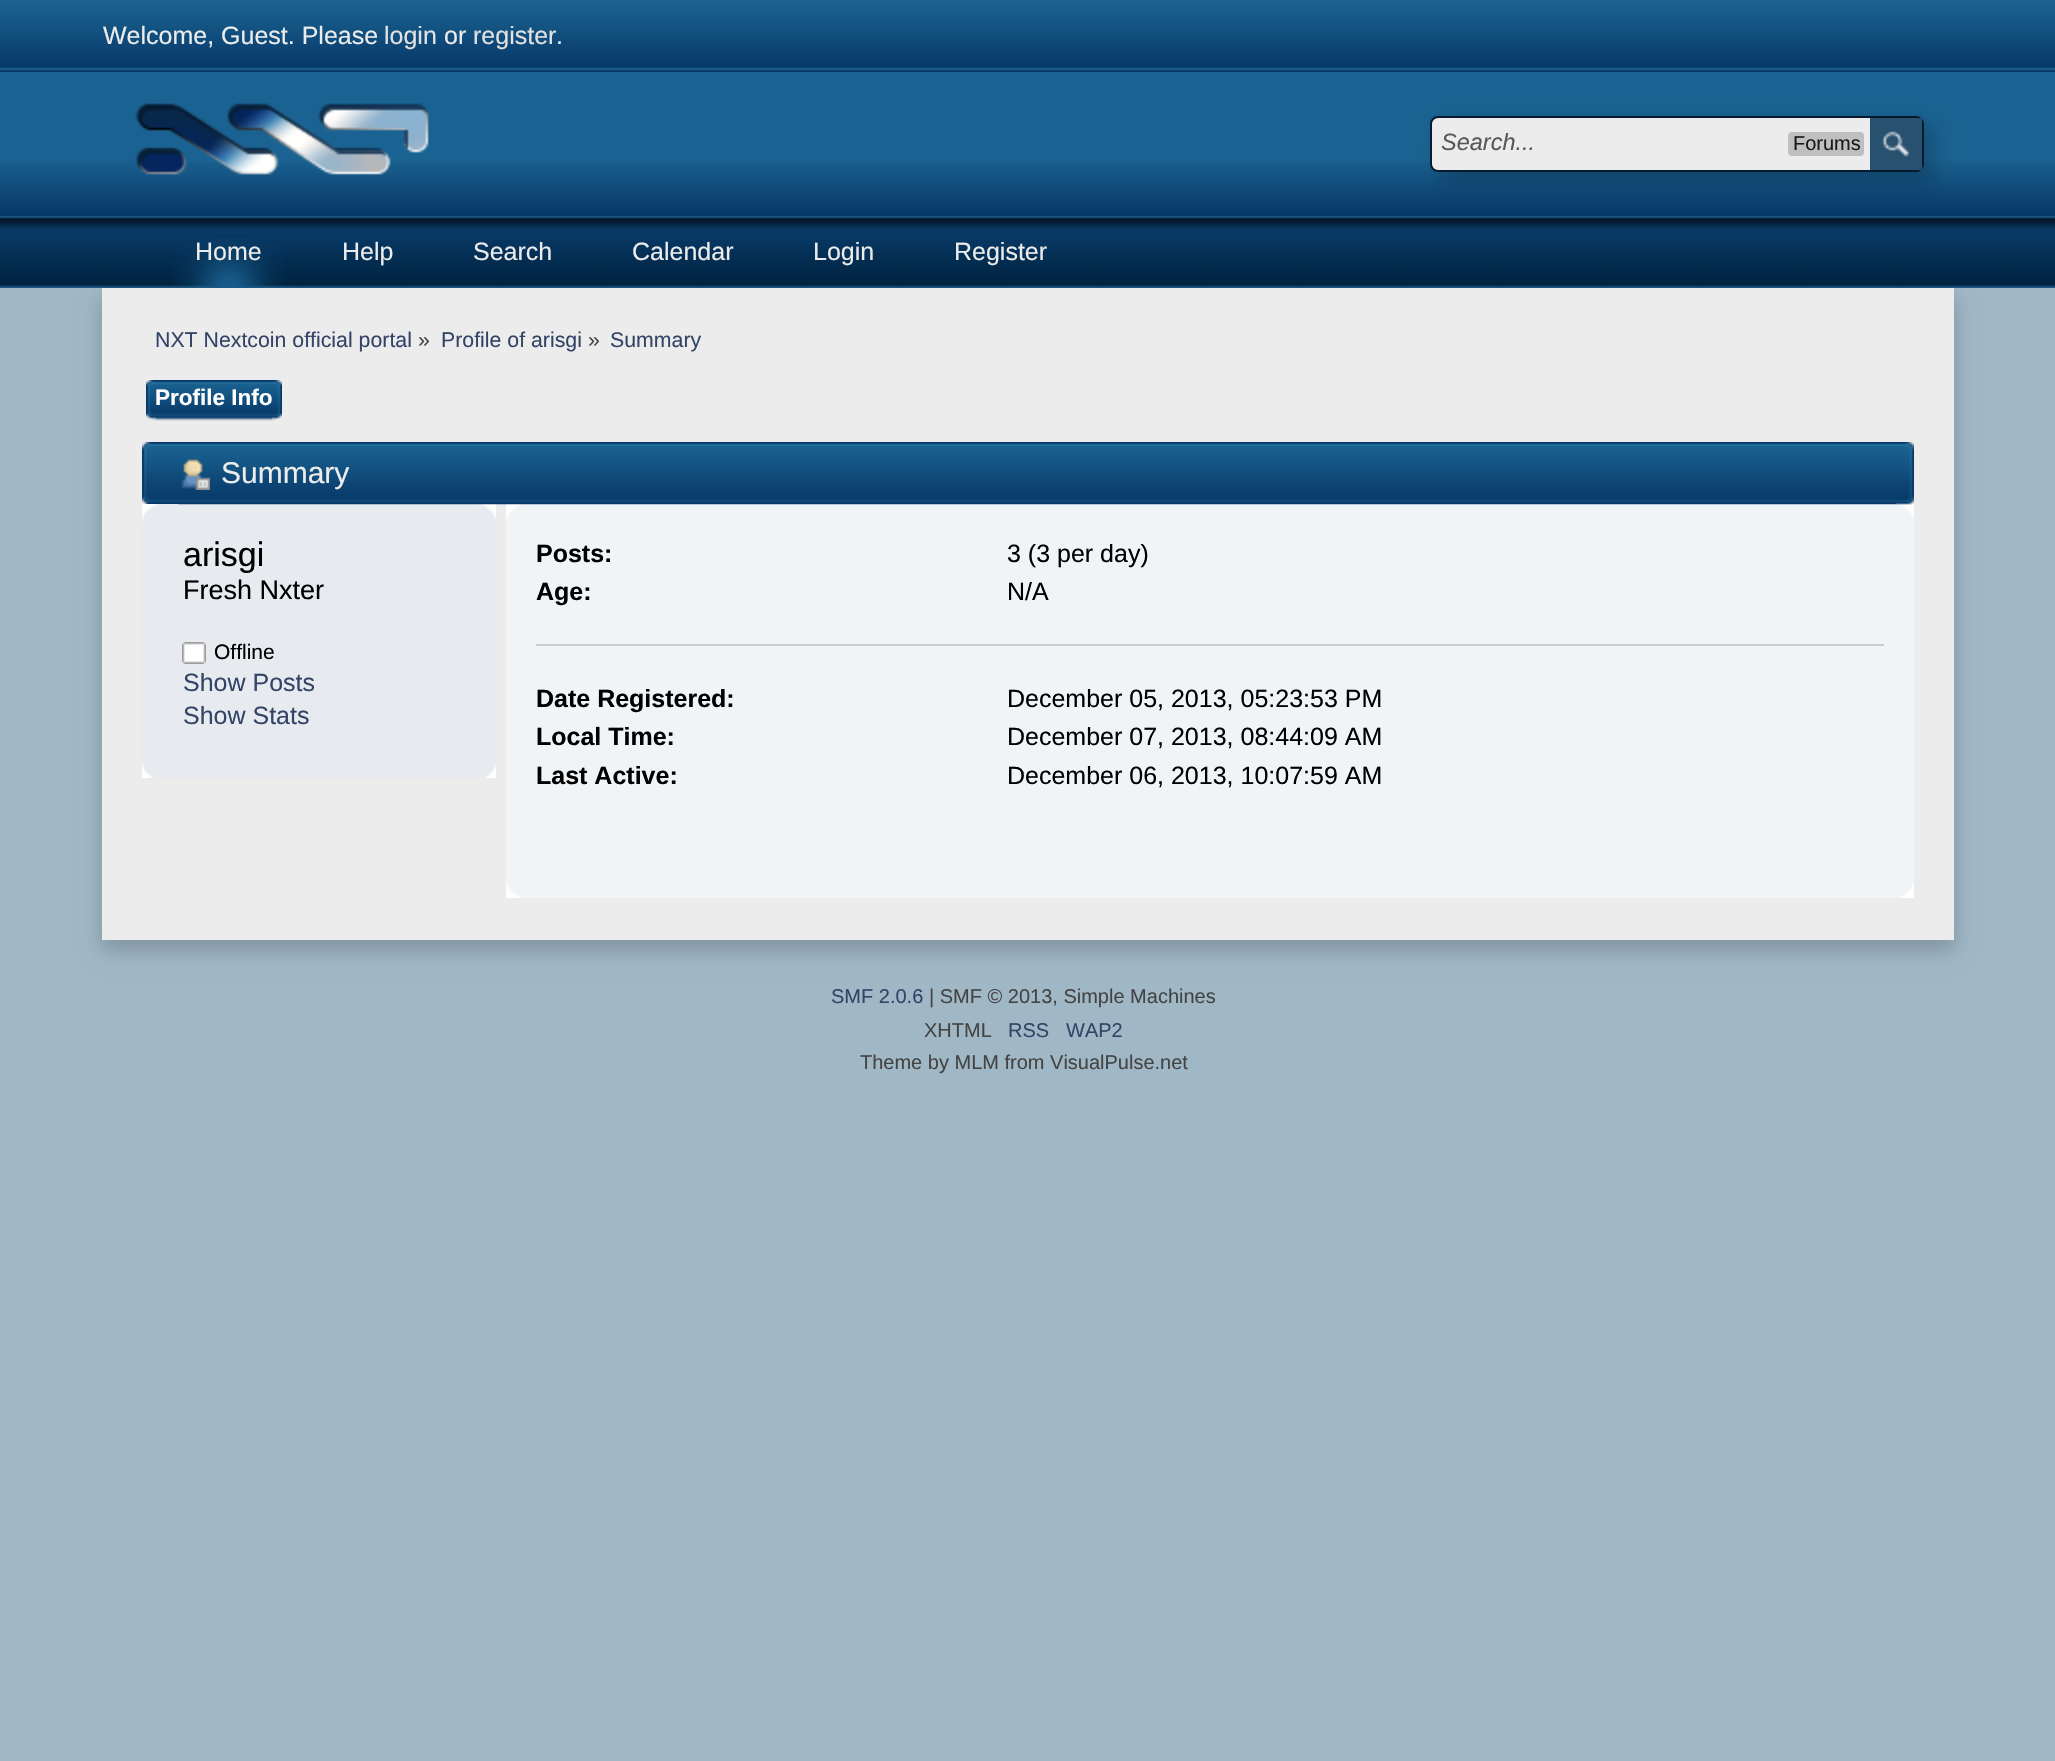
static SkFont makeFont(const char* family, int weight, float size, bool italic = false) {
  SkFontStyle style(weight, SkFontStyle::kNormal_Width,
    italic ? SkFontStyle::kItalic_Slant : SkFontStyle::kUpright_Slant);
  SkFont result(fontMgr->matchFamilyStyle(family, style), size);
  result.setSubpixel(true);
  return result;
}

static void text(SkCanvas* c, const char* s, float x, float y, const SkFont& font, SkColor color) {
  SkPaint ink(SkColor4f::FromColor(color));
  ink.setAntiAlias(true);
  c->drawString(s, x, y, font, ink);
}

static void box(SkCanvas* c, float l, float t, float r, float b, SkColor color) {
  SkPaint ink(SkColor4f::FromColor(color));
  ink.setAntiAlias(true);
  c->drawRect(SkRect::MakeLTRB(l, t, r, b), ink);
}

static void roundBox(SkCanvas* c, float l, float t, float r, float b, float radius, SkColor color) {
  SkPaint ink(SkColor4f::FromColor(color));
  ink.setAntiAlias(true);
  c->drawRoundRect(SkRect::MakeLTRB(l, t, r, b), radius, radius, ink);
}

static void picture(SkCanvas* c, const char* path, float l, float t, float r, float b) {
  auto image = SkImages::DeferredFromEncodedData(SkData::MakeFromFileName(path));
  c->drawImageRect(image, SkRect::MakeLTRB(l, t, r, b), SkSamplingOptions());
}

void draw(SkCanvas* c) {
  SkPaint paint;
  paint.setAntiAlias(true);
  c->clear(0xffa0b7c6);
  picture(c, "img_01.png", 0, 0, 2055, 72);
  SkFont face1 = makeFont("Liberation Sans", 400, 25);
  text(c, "Welcome, Guest. Please", 103, 44, face1, 0xffececec);
  text(c, "login", 384, 44, face1, 0xffe1e1e1);
  text(c, "or", 444, 44, face1, 0xffececec);
  text(c, "register", 473, 44, face1, 0xffe1e1e1);
  text(c, ".", 556, 44, face1, 0xffececec);
  box(c, 0, 72, 2055, 162, 0xff1a6291);
  picture(c, "img_02.png", 0, 162, 2055, 216);
  picture(c, "img_03.png", 135, 103, 429, 175);
  paint.setColor(0x33000000);
  paint.setMaskFilter(SkMaskFilter::MakeBlur(kNormal_SkBlurStyle, 10));
  c->drawRoundRect(SkRect::MakeLTRB(1440, 126, 1934, 182), 8, 8, paint);
  paint.setMaskFilter(nullptr);
  paint.setColor(0xffececec);
  c->drawRoundRect(SkRect::MakeLTRB(1431, 117, 1923, 171), 7, 7, paint);
  paint.setStyle(SkPaint::kStroke_Style);
  paint.setStrokeWidth(2);
  paint.setColor(0xff041a2f);
  c->drawRoundRect(SkRect::MakeLTRB(1431, 117, 1923, 171), 7, 7, paint);
  SkFont face2 = makeFont("Liberation Sans", 400, 23.5f, true);
  text(c, "Search...", 1441, 150, face2, 0xff595959);
  roundBox(c, 1788, 132, 1864, 156, 4, 0xffbfbfbf);
  SkFont face3 = makeFont("Liberation Sans", 400, 20);
  text(c, "Forums", 1793, 150, face3, 0xff1a1a1a);
  box(c, 1870, 118, 1922, 170, 0xff28506f);
  picture(c, "img_04.png", 1881, 131, 1911, 157);
  picture(c, "img_05.png", 0, 216, 2055, 288);
  paint.setStyle(SkPaint::kFill_Style);
  paint.setColor(0x33000000);
  paint.setMaskFilter(SkMaskFilter::MakeBlur(kNormal_SkBlurStyle, 10));
  c->drawRect(SkRect::MakeLTRB(102, 298, 1954, 950), paint);
  paint.setMaskFilter(nullptr);
  picture(c, "img_06.png", 173, 238, 285, 288);
  text(c, "Help", 342, 260, face1, 0xffececec);
  text(c, "Search", 473, 260, face1, 0xffececec);
  text(c, "Calendar", 632, 260, face1, 0xffececec);
  text(c, "Login", 813, 260, face1, 0xffececec);
  text(c, "Register", 954, 260, face1, 0xffececec);
  text(c, "Home", 195, 260, face1, 0xffececec);
  box(c, 102, 288, 1954, 940, 0xffececec);
  SkFont face4 = makeFont("Liberation Sans", 400, 21.3f);
  text(c, "NXT Nextcoin official portal", 155, 347, face4, 0xff334466);
  text(c, "»", 418, 347, face4, 0xff444444);
  text(c, "Profile of arisgi", 441, 347, face4, 0xff334466);
  text(c, "»", 588, 347, face4, 0xff444444);
  text(c, "Summary", 610, 347, face4, 0xff334466);
  picture(c, "img_07.png", 156, 380, 282, 421);
  picture(c, "img_08.png", 146, 380, 272, 421);
  SkFont face5 = makeFont("Liberation Sans", 700, 22.5f);
  text(c, "Profile Info", 155, 405, face5, 0xffffffff);
  picture(c, "img_09.png", 142, 442, 1896, 504);
  box(c, 142, 504, 496, 778, 0xffe7eaef);
  picture(c, "img_13.png", 479, 504, 496, 520);
  box(c, 506, 504, 1914, 898, 0xfff0f4f7);
  picture(c, "img_17.png", 506, 504, 522, 520);
  picture(c, "img_18.png", 1898, 504, 1914, 519);
  picture(c, "img_10.png", 178, 442, 1914, 505);
  picture(c, "img_11.png", 181, 459, 210, 490);
  SkFont face6 = makeFont("Liberation Sans", 400, 30);
  text(c, "Summary", 221, 483, face6, 0xffececec);
  picture(c, "img_12.png", 142, 504, 159, 521);
  SkFont face7 = makeFont("Liberation Sans", 400, 34);
  text(c, "arisgi", 183, 566, face7, 0xff000000);
  SkFont face8 = makeFont("Liberation Sans", 400, 27);
  text(c, "Fresh Nxter", 183, 599, face8, 0xff000000);
  picture(c, "img_14.png", 182, 642, 206, 664);
  SkFont face9 = makeFont("Liberation Sans", 400, 21);
  text(c, "Offline", 214, 659, face9, 0xff000000);
  text(c, "Show Posts", 183, 691, face1, 0xff334466);
  text(c, "Show Stats", 183, 724, face1, 0xff334466);
  picture(c, "img_15.png", 142, 763, 153, 778);
  picture(c, "img_16.png", 485, 763, 496, 778);
  box(c, 536, 644, 1884, 646, 0xffcccccc);
  SkFont face10 = makeFont("Liberation Sans", 700, 25);
  text(c, "Posts:", 536, 562, face10, 0xff000000);
  text(c, "3 (3 per day)", 1007, 562, face1, 0xff000000);
  text(c, "Age:", 536, 600, face10, 0xff000000);
  text(c, "N/A", 1007, 600, face1, 0xff000000);
  text(c, "Date Registered:", 536, 707, face10, 0xff000000);
  text(c, "December 05, 2013, 05:23:53 PM", 1007, 707, face1, 0xff000000);
  text(c, "Local Time:", 536, 745, face10, 0xff000000);
  text(c, "December 07, 2013, 08:44:09 AM", 1007, 745, face1, 0xff000000);
  text(c, "Last Active:", 536, 784, face10, 0xff000000);
  text(c, "December 06, 2013, 10:07:59 AM", 1007, 784, face1, 0xff000000);
  picture(c, "img_19.png", 506, 882, 522, 898);
  picture(c, "img_20.png", 1898, 882, 1914, 898);
  text(c, "SMF 2.0.6", 831, 1003, face3, 0xff334466);
  text(c, "| SMF © 2013, Simple Machines", 929, 1003, face3, 0xff444444);
  text(c, "XHTML", 924, 1037, face3, 0xff444444);
  text(c, "RSS", 1008, 1037, face3, 0xff334466);
  text(c, "WAP2", 1066, 1037, face3, 0xff334466);
  text(c, "Theme by MLM from VisualPulse.net", 860, 1069, face3, 0xff444444);
}
